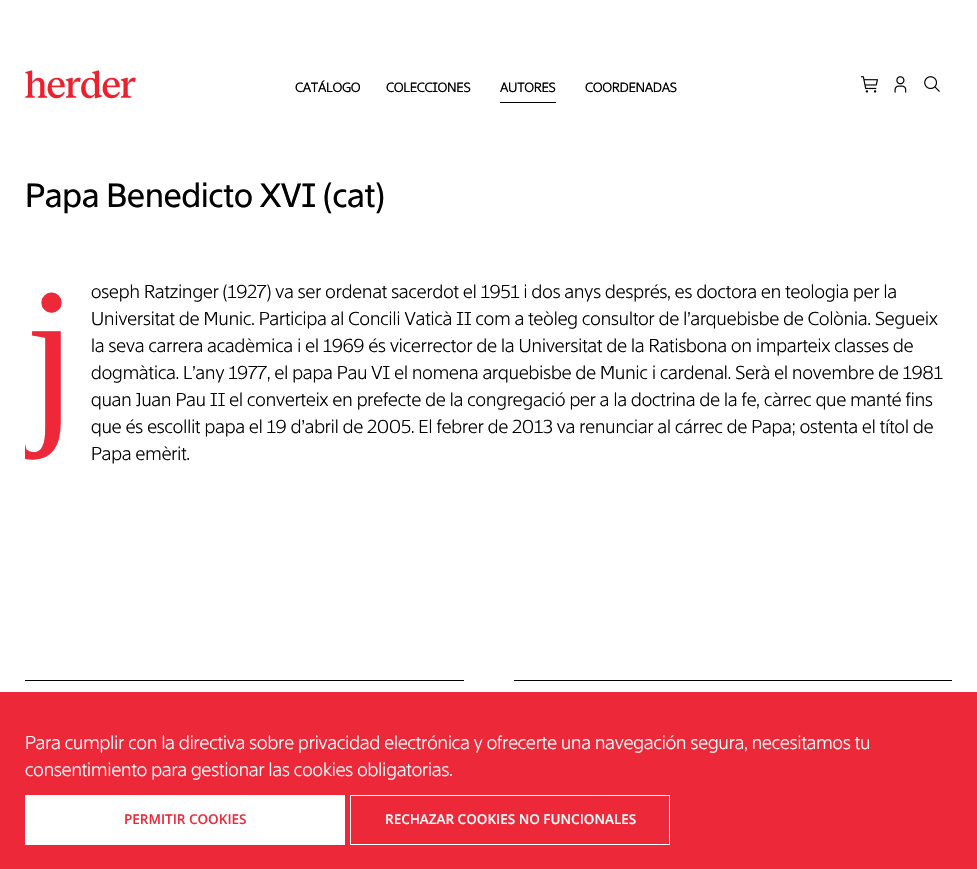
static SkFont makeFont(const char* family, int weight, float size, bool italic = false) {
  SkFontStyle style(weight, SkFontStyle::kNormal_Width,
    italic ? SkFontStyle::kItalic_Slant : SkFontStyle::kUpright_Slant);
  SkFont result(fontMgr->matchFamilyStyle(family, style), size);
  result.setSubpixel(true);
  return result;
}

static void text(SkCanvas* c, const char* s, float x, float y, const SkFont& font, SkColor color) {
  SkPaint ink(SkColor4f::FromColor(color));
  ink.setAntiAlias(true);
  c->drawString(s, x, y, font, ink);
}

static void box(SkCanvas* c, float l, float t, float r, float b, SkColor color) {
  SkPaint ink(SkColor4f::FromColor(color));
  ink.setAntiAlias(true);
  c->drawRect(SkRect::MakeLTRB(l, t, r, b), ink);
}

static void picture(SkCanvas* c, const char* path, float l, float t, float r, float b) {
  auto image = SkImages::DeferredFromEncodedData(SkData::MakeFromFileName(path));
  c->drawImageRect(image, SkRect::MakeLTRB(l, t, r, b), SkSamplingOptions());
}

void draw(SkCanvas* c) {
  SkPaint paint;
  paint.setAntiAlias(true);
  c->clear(0xffffffff);
  picture(c, "img_01.png", 25, 70, 136, 99);
  picture(c, "img_02.png", 861, 76, 878, 93);
  picture(c, "img_03.png", 894, 76, 907, 93);
  picture(c, "img_04.png", 924, 76, 940, 92);
  SkFont face1 = makeFont("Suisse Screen", 700, 12.5f);
  text(c, "CATÁLOGO", 295, 92, face1, 0xff000000);
  text(c, "COLECCIONES", 386, 92, face1, 0xff000000);
  box(c, 500, 102, 556, 103, 0xff000000);
  text(c, "AUTORES", 500, 92, face1, 0xff000000);
  text(c, "COORDENADAS", 585, 92, face1, 0xff000000);
  SkFont face2 = makeFont("Suisse Screen", 400, 32.4f);
  text(c, "Papa Benedicto XVI (cat)", 25, 207, face2, 0xff000000);
  c->save();
  c->clipRect(SkRect::MakeLTRB(25, 230, 952, 469));
  SkFont face3 = makeFont("Liberation Serif", 400, 191);
  text(c, "j", 25, 419, face3, 0xffed2939);
  c->restore();
  SkFont face4 = makeFont("Suisse Screen", 300, 18);
  text(c, "oseph Ratzinger (1927) va ser ordenat sacerdot el 1951 i dos anys després, es doctora en teologia per la", 91, 298, face4, 0xff000000);
  text(c, "Universitat de Munic. Participa al Concili Vaticà II com a teòleg consultor de l’arquebisbe de Colònia. Segueix", 91, 325, face4, 0xff000000);
  text(c, "la seva carrera acadèmica i el 1969 és vicerrector de la Universitat de la Ratisbona on imparteix classes de", 91, 352, face4, 0xff000000);
  text(c, "dogmàtica. L’any 1977, el papa Pau VI el nomena arquebisbe de Munic i cardenal. Serà el novembre de 1981", 91, 379, face4, 0xff000000);
  text(c, "quan Juan Pau II el converteix en prefecte de la congregació per a la doctrina de la fe, càrrec que manté fins", 91, 406, face4, 0xff000000);
  text(c, "que és escollit papa el 19 d’abril de 2005. El febrer de 2013 va renunciar al cárrec de Papa; ostenta el títol de", 91, 433, face4, 0xff000000);
  text(c, "Papa emèrit.", 91, 460, face4, 0xff000000);
  box(c, 25, 680, 464, 681, 0xff000000);
  box(c, 514, 680, 952, 681, 0xff000000);
  box(c, 0, 692, 977, 869, 0xffed2939);
  text(c, "Para cumplir con la directiva sobre privacidad electrónica y ofrecerte una navegación segura, necesitamos tu", 25, 749, face4, 0xffffffff);
  text(c, "consentimiento para gestionar las cookies obligatorias.", 25, 776, face4, 0xffffffff);
  box(c, 25, 795, 345, 845, 0xffffffff);
  SkFont face5 = makeFont("Open Sans", 600, 13.5f);
  text(c, "PERMITIR COOKIES", 124, 824, face5, 0xffed2939);
  paint.setStyle(SkPaint::kStroke_Style);
  paint.setStrokeWidth(1);
  paint.setColor(0xffffffff);
  c->drawRect(SkRect::MakeLTRB(350.5f, 795.5f, 669.5f, 844.5f), paint);
  text(c, "RECHAZAR COOKIES NO FUNCIONALES", 385, 824, face5, 0xffffffff);
}
